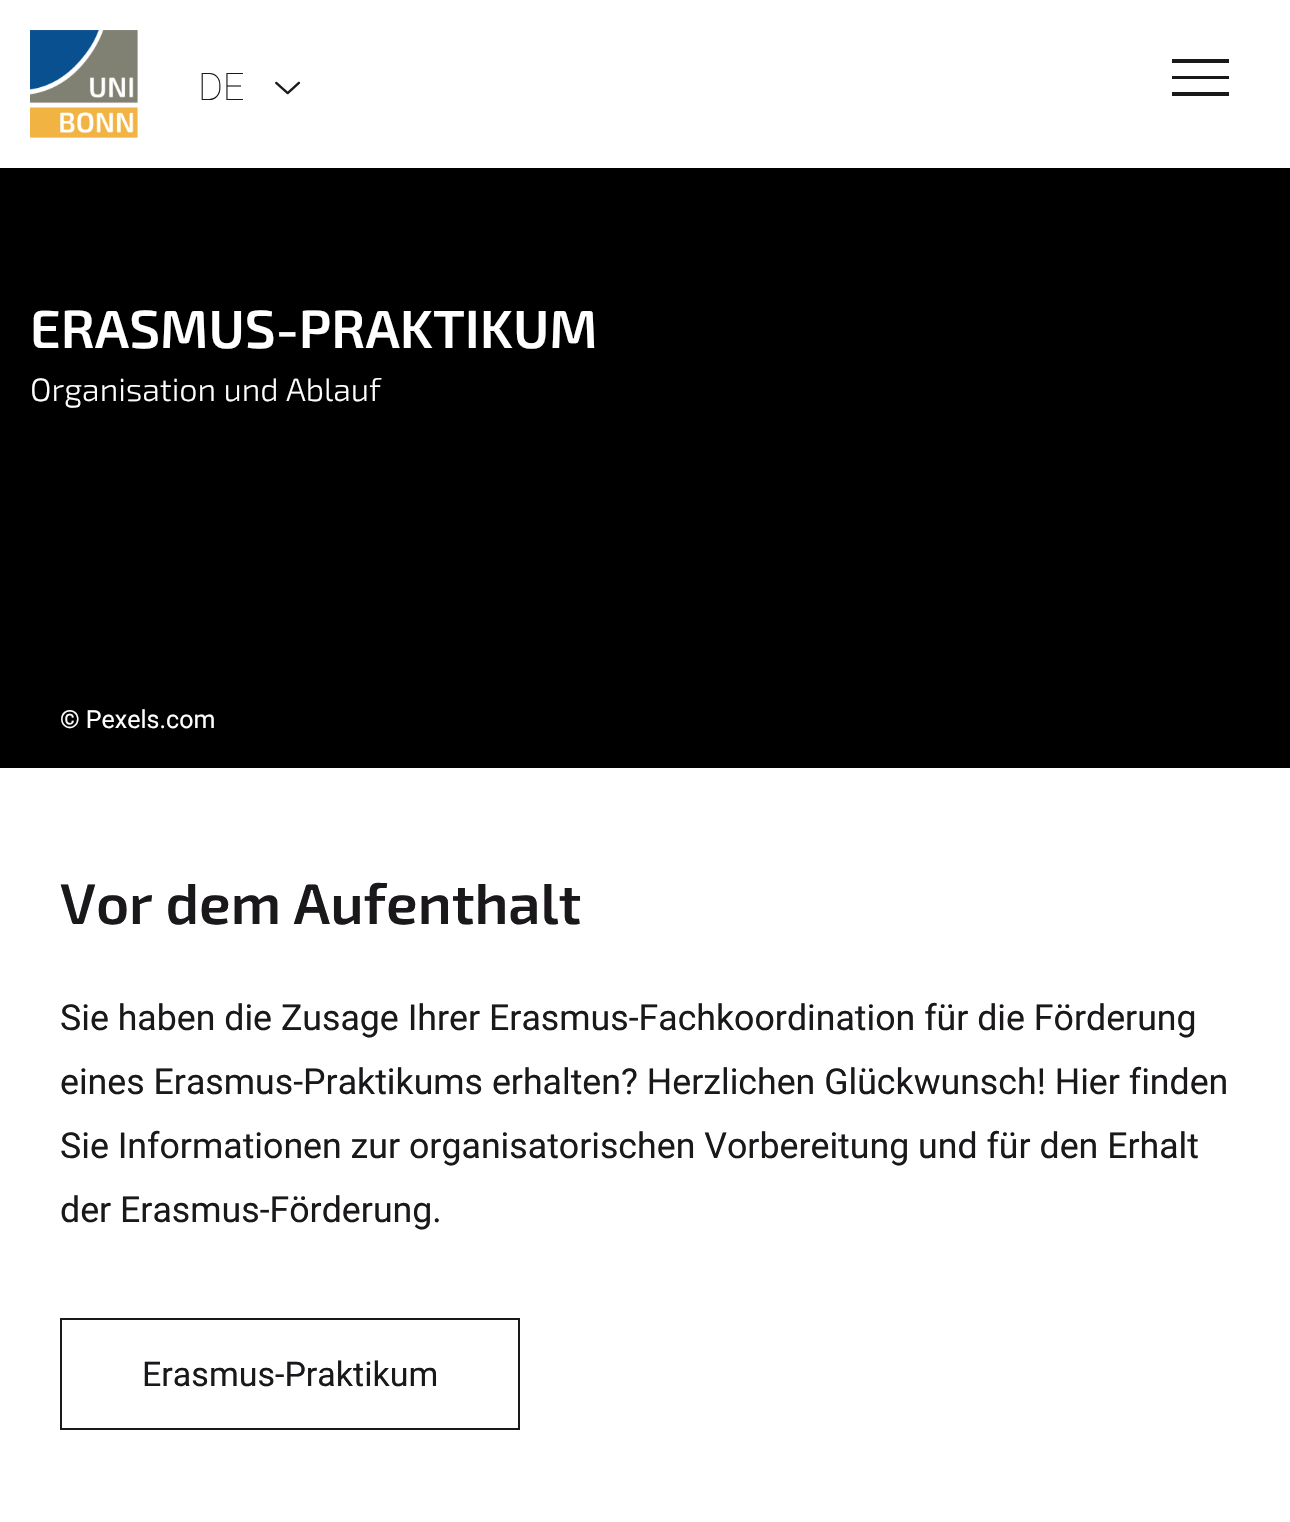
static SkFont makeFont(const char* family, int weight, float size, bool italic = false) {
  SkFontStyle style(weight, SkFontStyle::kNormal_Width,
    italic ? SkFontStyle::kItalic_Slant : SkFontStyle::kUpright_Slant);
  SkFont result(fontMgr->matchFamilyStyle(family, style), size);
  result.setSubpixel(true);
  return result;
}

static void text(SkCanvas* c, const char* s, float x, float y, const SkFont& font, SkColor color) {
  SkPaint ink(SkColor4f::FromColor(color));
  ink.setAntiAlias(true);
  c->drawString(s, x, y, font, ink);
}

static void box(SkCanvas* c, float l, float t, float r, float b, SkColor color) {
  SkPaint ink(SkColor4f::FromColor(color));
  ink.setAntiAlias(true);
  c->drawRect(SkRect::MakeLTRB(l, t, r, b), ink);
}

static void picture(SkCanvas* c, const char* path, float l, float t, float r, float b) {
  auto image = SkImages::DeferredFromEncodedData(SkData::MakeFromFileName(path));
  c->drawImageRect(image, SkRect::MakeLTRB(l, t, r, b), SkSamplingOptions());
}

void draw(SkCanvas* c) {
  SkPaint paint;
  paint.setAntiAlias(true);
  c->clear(0xffffffff);
  picture(c, "img_01.png", 30, 30, 138, 138);
  SkFont face1 = makeFont("Roboto", 100, 38);
  text(c, "DE", 198, 100, face1, 0xff1a181b);
  picture(c, "img_02.png", 275, 81, 301, 95);
  paint.setColor(0xff1a181b);
  c->drawPath(SkPathBuilder().moveTo(1172, 96).lineTo(1229, 96).lineTo(1229, 92).lineTo(1172, 92).close().moveTo(1172, 79).lineTo(1229, 79).lineTo(1229, 76).lineTo(1172, 76).close().moveTo(1172, 59).lineTo(1172, 63).lineTo(1229, 63).lineTo(1229, 59).close().detach(), paint);
  box(c, 0, 168, 1290, 768, 0xff000000);
  SkFont face2 = makeFont("Exo 2", 600, 53.75f);
  text(c, "ERASMUS-PRAKTIKUM", 30, 348, face2, 0xffffffff);
  SkFont face3 = makeFont("Exo 2", 300, 32.25f);
  text(c, "Organisation und Ablauf", 30, 401, face3, 0xffffffff);
  SkFont face4 = makeFont("Roboto", 400, 25);
  text(c, "© Pexels.com", 60, 728, face4, 0xffffffff);
  SkFont face5 = makeFont("Exo 2", 600, 57.25f);
  text(c, "Vor dem Aufenthalt", 60, 924, face5, 0xff1a181b);
  SkFont face6 = makeFont("Roboto", 400, 35.7f);
  text(c, "Sie haben die Zusage Ihrer Erasmus-Fachkoordination für die Förderung", 60, 1030, face6, 0xff1a181b);
  text(c, "eines Erasmus-Praktikums erhalten? Herzlichen Glückwunsch! Hier finden", 60, 1094, face6, 0xff1a181b);
  text(c, "Sie Informationen zur organisatorischen Vorbereitung und für den Erhalt", 60, 1158, face6, 0xff1a181b);
  text(c, "der Erasmus-Förderung.", 60, 1222, face6, 0xff1a181b);
  paint.setStyle(SkPaint::kStroke_Style);
  paint.setStrokeWidth(2);
  c->drawRect(SkRect::MakeLTRB(61, 1319, 519, 1429), paint);
  SkFont face7 = makeFont("Roboto", 400, 34);
  text(c, "Erasmus-Praktikum", 142, 1386, face7, 0xff1a181b);
}
